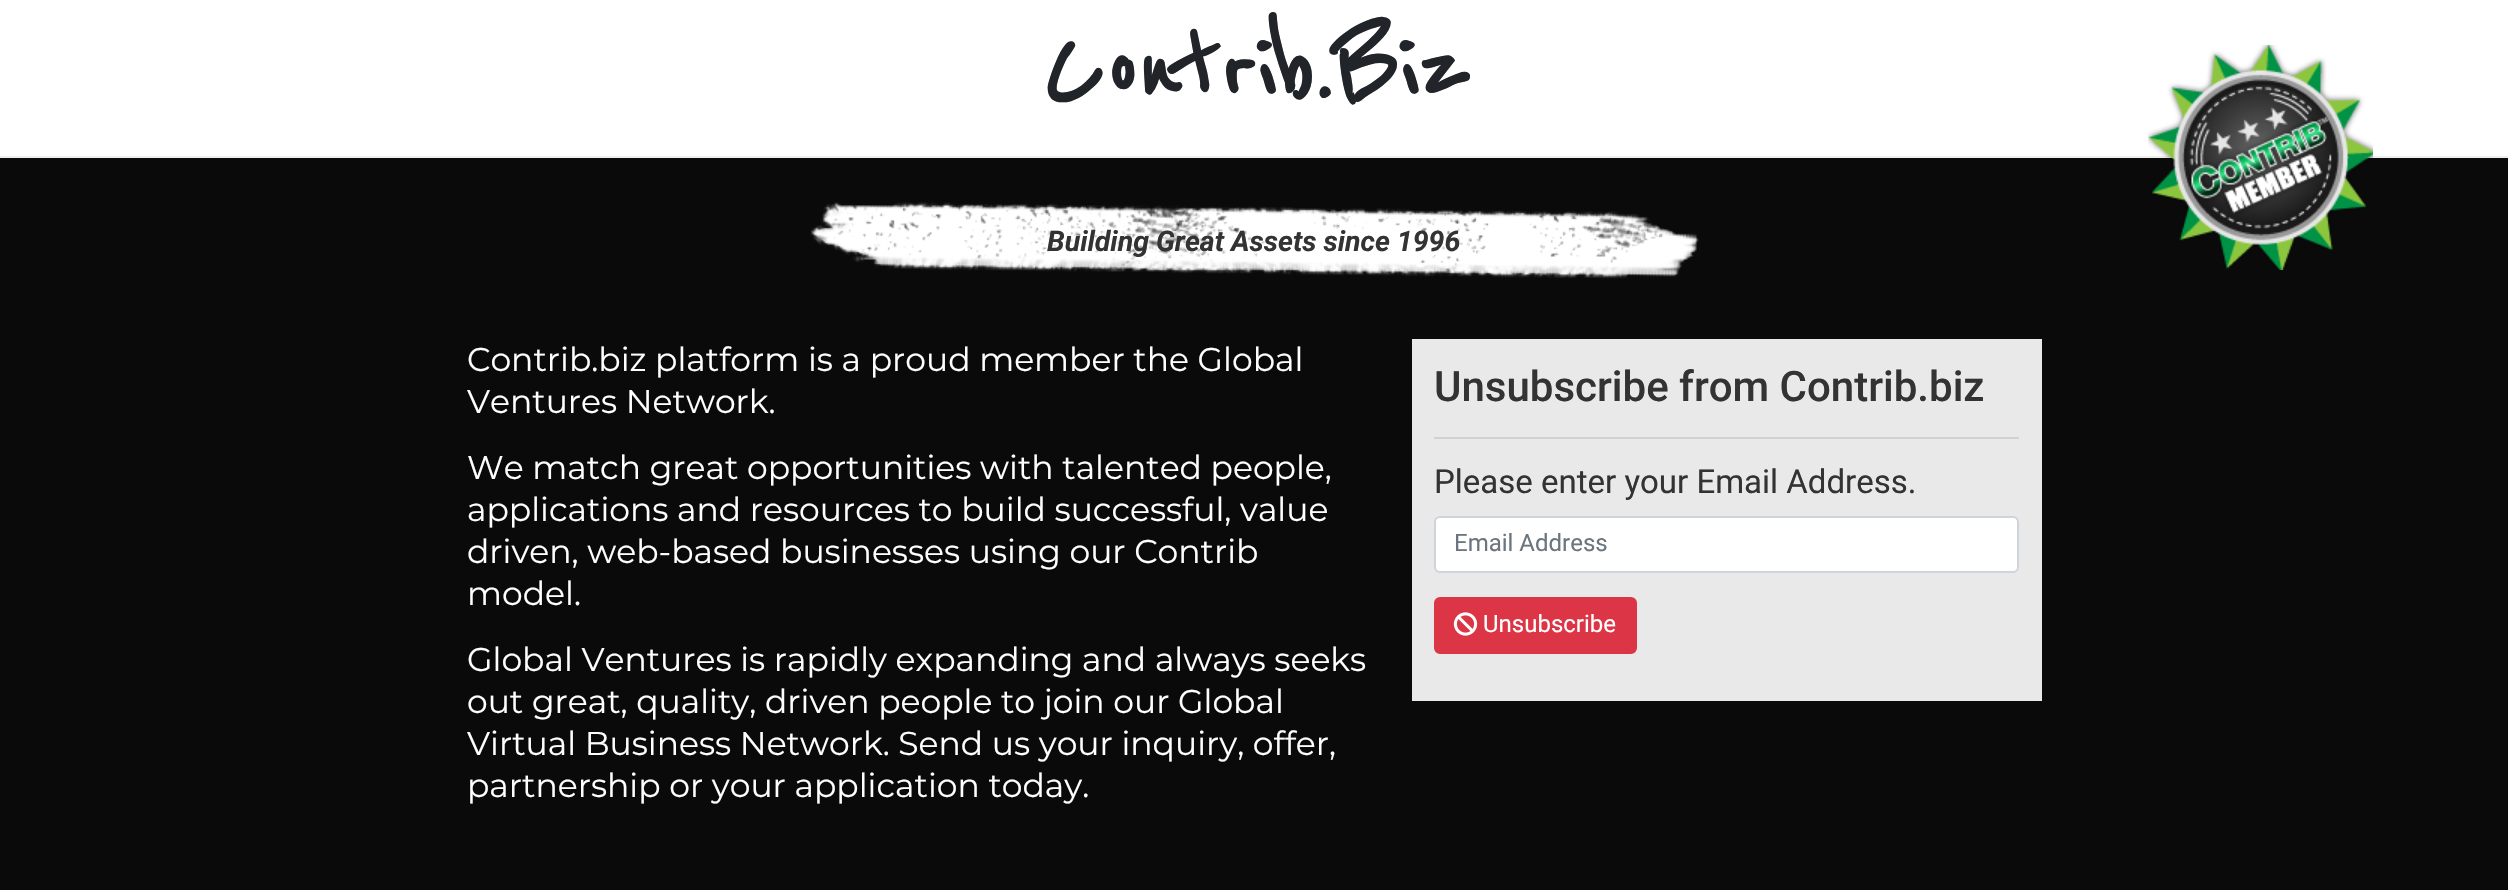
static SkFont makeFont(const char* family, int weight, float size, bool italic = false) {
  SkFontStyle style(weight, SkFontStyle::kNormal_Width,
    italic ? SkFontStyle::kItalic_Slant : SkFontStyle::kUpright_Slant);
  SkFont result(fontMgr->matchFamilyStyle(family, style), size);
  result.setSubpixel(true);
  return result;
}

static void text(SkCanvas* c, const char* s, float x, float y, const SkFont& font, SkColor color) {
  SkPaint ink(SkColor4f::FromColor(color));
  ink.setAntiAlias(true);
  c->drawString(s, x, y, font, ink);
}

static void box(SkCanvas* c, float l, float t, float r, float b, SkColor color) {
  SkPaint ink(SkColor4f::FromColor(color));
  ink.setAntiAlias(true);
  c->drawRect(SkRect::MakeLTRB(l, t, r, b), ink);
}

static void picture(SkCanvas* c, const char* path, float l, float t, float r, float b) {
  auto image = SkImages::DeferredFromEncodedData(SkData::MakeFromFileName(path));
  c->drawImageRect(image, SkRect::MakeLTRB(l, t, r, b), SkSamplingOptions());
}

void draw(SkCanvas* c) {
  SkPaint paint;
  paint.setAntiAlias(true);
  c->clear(0xffffffff);
  box(c, 0, 156, 2508, 158, 0xffeeeeee);
  SkFont face1 = makeFont("Reenie Beanie", 700, 120);
  text(c, "Contrib.Biz", 1042, 102, face1, 0xff212529);
  box(c, 0, 158, 2508, 890, 0xff0a0a0a);
  picture(c, "img_01.png", 2148, 45, 2373, 270);
  picture(c, "img_02.png", 810, 202, 1699, 279);
  SkFont face2 = makeFont("Roboto", 700, 28.5f, true);
  text(c, "Building Great Assets since 1996", 1047, 251, face2, 0xff333333);
  SkFont face3 = makeFont("Montserrat", 100, 33);
  text(c, "Contrib.biz platform is a proud member the Global", 467, 371, face3, 0xffffffff);
  text(c, "Ventures Network.", 467, 413, face3, 0xffffffff);
  text(c, "We match great opportunities with talented people,", 467, 479, face3, 0xffffffff);
  text(c, "applications and resources to build successful, value", 467, 521, face3, 0xffffffff);
  text(c, "driven, web-based businesses using our Contrib", 467, 563, face3, 0xffffffff);
  text(c, "model.", 467, 605, face3, 0xffffffff);
  text(c, "Global Ventures is rapidly expanding and always seeks", 467, 671, face3, 0xffffffff);
  text(c, "out great, quality, driven people to join our Global", 467, 713, face3, 0xffffffff);
  text(c, "Virtual Business Network. Send us your inquiry, offer,", 467, 755, face3, 0xffffffff);
  text(c, "partnership or your application today.", 467, 797, face3, 0xffffffff);
  box(c, 1412, 339, 2042, 701, 0xffe9e9e9);
  SkFont face4 = makeFont("Roboto", 500, 42);
  text(c, "Unsubscribe from Contrib.biz", 1434, 401, face4, 0xff333333);
  box(c, 1434, 437, 2019, 439, 0xffd2d2d2);
  SkFont face5 = makeFont("Roboto", 400, 33);
  text(c, "Please enter your Email Address.", 1434, 493, face5, 0xff333333);
  paint.setColor(0xffffffff);
  c->drawRoundRect(SkRect::MakeLTRB(1435, 517, 2018, 572), 5, 5, paint);
  paint.setStyle(SkPaint::kStroke_Style);
  paint.setStrokeWidth(2);
  paint.setColor(0xffced4da);
  c->drawRoundRect(SkRect::MakeLTRB(1435, 517, 2018, 572), 5, 5, paint);
  SkFont face6 = makeFont("Roboto", 400, 24);
  text(c, "Email Address", 1454, 551, face6, 0xff6c757d);
  paint.setStyle(SkPaint::kFill_Style);
  paint.setColor(0xffdc3545);
  c->drawRoundRect(SkRect::MakeLTRB(1435, 598, 1636, 653), 5, 5, paint);
  paint.setStyle(SkPaint::kStroke_Style);
  c->drawRoundRect(SkRect::MakeLTRB(1435, 598, 1636, 653), 5, 5, paint);
  picture(c, "img_03.png", 1453, 612, 1478, 636);
  text(c, "Unsubscribe", 1483, 632, face6, 0xffffffff);
}
